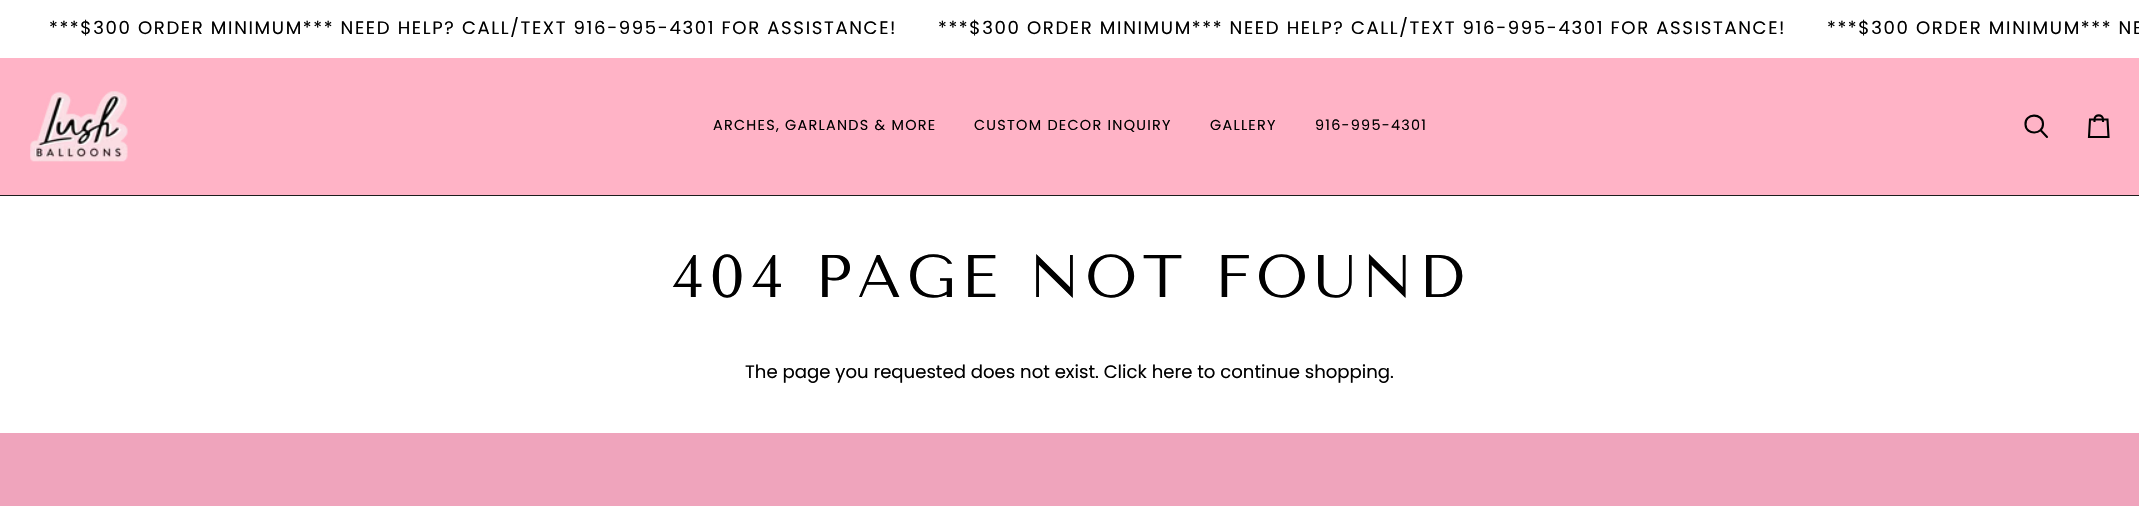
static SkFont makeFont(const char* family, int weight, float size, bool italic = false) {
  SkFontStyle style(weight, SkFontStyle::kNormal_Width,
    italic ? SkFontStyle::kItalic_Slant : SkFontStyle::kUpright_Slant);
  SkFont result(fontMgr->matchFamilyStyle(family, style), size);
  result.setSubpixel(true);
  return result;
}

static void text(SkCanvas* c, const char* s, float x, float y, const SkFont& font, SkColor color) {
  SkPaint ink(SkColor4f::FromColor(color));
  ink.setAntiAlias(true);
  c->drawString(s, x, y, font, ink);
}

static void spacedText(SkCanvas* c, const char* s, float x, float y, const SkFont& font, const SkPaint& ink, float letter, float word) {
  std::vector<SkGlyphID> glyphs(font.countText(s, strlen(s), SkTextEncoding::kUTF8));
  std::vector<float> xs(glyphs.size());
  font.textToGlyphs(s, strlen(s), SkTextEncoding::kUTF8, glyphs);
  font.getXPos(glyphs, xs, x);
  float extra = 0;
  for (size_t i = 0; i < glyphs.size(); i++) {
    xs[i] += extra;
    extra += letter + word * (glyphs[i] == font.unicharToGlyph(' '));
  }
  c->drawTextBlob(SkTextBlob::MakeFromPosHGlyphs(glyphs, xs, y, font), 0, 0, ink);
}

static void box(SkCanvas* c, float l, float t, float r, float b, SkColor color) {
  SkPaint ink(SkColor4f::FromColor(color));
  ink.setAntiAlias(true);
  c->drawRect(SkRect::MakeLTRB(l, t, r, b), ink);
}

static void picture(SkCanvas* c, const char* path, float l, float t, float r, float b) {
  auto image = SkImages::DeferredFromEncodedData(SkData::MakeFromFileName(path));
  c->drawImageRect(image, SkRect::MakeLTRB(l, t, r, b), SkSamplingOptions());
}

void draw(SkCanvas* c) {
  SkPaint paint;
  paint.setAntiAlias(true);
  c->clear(0xffffffff);
  SkFont face1 = makeFont("Poppins", 400, 18.1f);
  paint.setColor(0xff000000);
  spacedText(c, "***$300 ORDER MINIMUM*** NEED HELP? CALL/TEXT 916-995-4301 FOR ASSISTANCE!", 49, 34, face1, paint, 1.63f, 0);
  spacedText(c, "***$300 ORDER MINIMUM*** NEED HELP? CALL/TEXT 916-995-4301 FOR ASSISTANCE!", 938, 34, face1, paint, 1.63f, 0);
  spacedText(c, "***$300 ORDER MINIMUM*** NE", 1827, 34, face1, paint, 1.63f, 0);
  box(c, 0, 58, 2139, 195, 0xffffb3c6);
  box(c, 0, 195, 2139, 196, 0xff1d1d1d);
  picture(c, "img_01.png", 30, 91, 128, 162);
  SkFont face2 = makeFont("Poppins", 400, 14.4f);
  spacedText(c, "ARCHES, GARLANDS & MORE", 713, 130, face2, paint, 1.25f, 0);
  spacedText(c, "CUSTOM DECOR INQUIRY", 974, 130, face2, paint, 1.25f, 0);
  spacedText(c, "GALLERY", 1210, 130, face2, paint, 1.25f, 0);
  spacedText(c, "916-995-4301", 1315, 130, face2, paint, 1.25f, 0);
  paint.setStyle(SkPaint::kStroke_Style);
  paint.setStrokeWidth(2.1f);
  paint.setStrokeCap(SkPaint::kRound_Cap);
  paint.setStrokeJoin(SkPaint::kRound_Join);
  c->drawPath(SkPathBuilder().moveTo(2043, 124).cubicTo(2043, 135, 2026, 135.5f, 2025.5f, 124.5f).cubicTo(2024.5f, 113, 2043, 112.5f, 2043, 124).close().moveTo(2047, 137).lineTo(2040.5f, 130).close().detach(), paint);
  paint.setStrokeCap(SkPaint::kButt_Cap);
  paint.setStrokeJoin(SkPaint::kMiter_Join);
  c->drawPath(SkPathBuilder().moveTo(2103, 122).lineTo(2103, 119.5f).lineTo(2107.5f, 119.5f).lineTo(2108.5f, 137).lineTo(2089, 137).lineTo(2090, 119.5f).lineTo(2094.5f, 119.5f).cubicTo(2094.5f, 114, 2103, 114, 2103, 119.5f).lineTo(2094.5f, 119.5f).lineTo(2094.5f, 122).detach(), paint);
  SkFont face3 = makeFont("Tenor Sans", 400, 60);
  paint.setStyle(SkPaint::kFill_Style);
  spacedText(c, "404 PAGE NOT FOUND", 671, 297, face3, paint, 5.4f, 0);
  text(c, "The page you requested does not exist. Click here to continue shopping.", 745, 378, face1, 0xff000000);
  box(c, 0, 433, 2139, 506, 0xffefa4bc);
}
